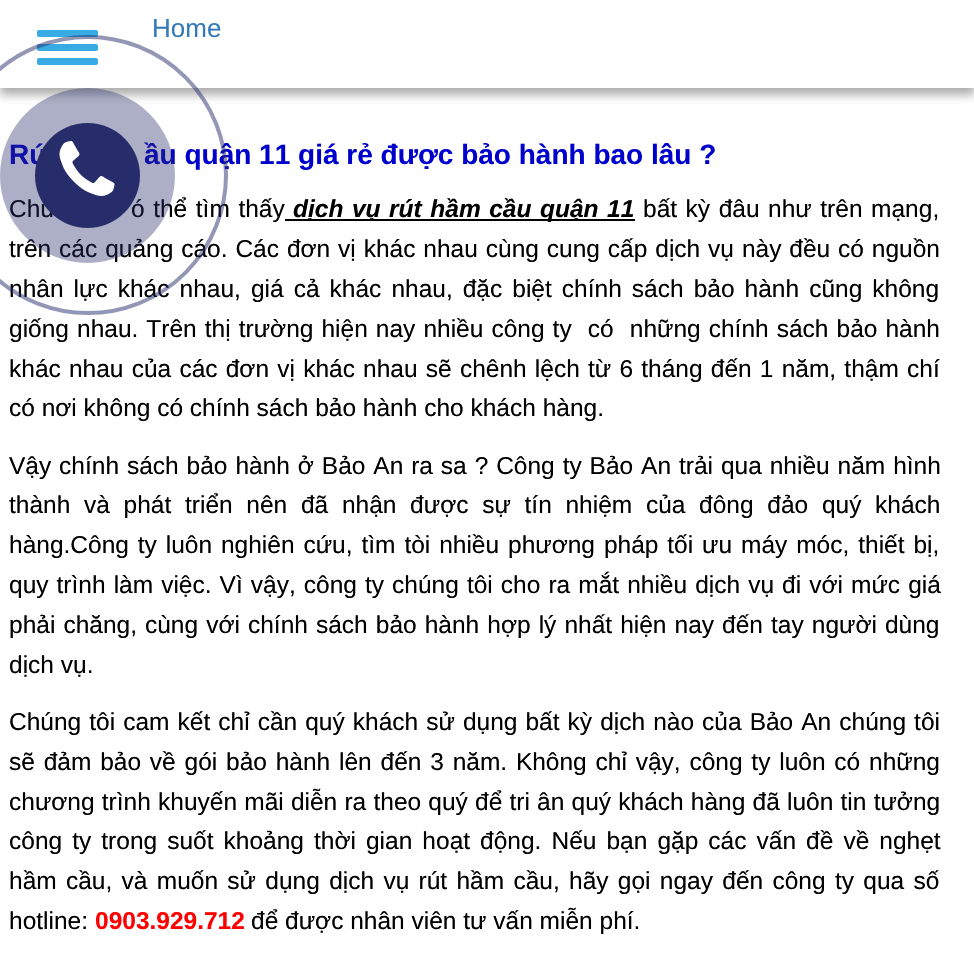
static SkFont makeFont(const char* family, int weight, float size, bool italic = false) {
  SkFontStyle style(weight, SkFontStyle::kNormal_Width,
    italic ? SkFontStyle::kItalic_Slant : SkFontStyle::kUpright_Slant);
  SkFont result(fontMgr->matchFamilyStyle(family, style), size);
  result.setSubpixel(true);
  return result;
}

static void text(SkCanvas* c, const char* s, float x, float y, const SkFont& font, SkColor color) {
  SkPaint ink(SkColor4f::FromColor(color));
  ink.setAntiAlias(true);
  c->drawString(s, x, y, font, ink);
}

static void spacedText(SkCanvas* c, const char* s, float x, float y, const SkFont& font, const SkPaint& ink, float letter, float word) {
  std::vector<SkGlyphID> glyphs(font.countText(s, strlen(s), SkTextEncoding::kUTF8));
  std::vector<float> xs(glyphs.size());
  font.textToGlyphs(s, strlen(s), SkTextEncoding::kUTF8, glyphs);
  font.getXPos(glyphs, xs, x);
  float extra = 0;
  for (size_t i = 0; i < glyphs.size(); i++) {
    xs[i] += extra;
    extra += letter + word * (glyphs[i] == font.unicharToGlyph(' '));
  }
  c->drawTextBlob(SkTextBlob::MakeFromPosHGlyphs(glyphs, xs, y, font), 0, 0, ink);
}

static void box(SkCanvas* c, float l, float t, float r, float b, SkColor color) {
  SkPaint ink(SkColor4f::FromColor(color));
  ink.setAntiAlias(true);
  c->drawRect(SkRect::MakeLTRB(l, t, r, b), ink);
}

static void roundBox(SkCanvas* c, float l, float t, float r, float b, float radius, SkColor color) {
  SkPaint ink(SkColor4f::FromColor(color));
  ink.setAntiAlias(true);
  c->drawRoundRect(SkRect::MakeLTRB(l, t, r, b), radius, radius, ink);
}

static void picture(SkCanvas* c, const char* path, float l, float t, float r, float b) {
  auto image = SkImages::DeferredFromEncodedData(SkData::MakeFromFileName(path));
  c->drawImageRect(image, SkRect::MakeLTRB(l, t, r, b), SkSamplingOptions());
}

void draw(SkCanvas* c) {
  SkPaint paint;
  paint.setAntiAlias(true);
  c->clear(0xffffffff);
  paint.setColor(0x66323232);
  paint.setMaskFilter(SkMaskFilter::MakeBlur(kNormal_SkBlurStyle, 4.5f));
  c->drawRect(SkRect::MakeLTRB(0, 5, 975, 95), paint);
  paint.setMaskFilter(nullptr);
  box(c, 0, 0, 974, 88, 0xffffffff);
  SkFont face1 = makeFont("Liberation Sans", 400, 26);
  text(c, "Home", 152, 37, face1, 0xff337ab7);
  roundBox(c, 37, 30, 98, 37, 2, 0xff38aae4);
  roundBox(c, 37, 44, 98, 51, 2, 0xff38aae4);
  roundBox(c, 37, 58, 98, 65, 2, 0xff38aae4);
  SkFont face2 = makeFont("Liberation Sans", 700, 28);
  text(c, "Rú", 9, 164, face2, 0xff0000cd);
  text(c, "ầu quận 11 giá rẻ được bảo hành bao lâu ?", 144, 164, face2, 0xff0000cd);
  SkFont face3 = makeFont("Liberation Sans", 400, 24.5f);
  paint.setColor(0xff000000);
  spacedText(c, "Chú", 9, 217, face3, paint, 0, 1.75f);
  spacedText(c, "ó thể tìm thấy", 131, 217, face3, paint, 0, 1.75f);
  spacedText(c, "trên các quảng cáo. Các đơn vị khác nhau cùng cung cấp dịch vụ này đều có nguồn", 9, 257, face3, paint, 0, 1.1f);
  spacedText(c, "nhân lực khác nhau, giá cả khác nhau, đặc biệt chính sách bảo hành cũng không", 9, 297, face3, paint, 0, 3.25f);
  paint.setStyle(SkPaint::kStroke_Style);
  paint.setStrokeWidth(4);
  paint.setColor(0x80272d6b);
  c->drawCircle(88, 175, 138, paint);
  paint.setStyle(SkPaint::kFill_Style);
  paint.setColor(0x61272d6b);
  c->drawCircle(87.5f, 175.5f, 87.5f, paint);
  paint.setColor(0xff272d6b);
  c->drawCircle(87.5f, 175.5f, 52.5f, paint);
  picture(c, "img_01.png", 59, 141, 115, 196);
  box(c, 285, 219, 635, 221, 0xff000000);
  SkFont face4 = makeFont("Liberation Sans", 700, 24.5f, true);
  paint.setColor(0xff000000);
  spacedText(c, "dịch vụ rút hầm cầu quận 11", 293, 217, face4, paint, 0, 1.75f);
  spacedText(c, "bất kỳ đâu như trên mạng,", 643, 217, face3, paint, 0, 1.75f);
  spacedText(c, "giống nhau. Trên thị trường hiện nay nhiều công ty  có  những chính sách bảo hành", 9, 337, face3, paint, 0, 1.25f);
  spacedText(c, "khác nhau của các đơn vị khác nhau sẽ chênh lệch từ 6 tháng đến 1 năm, thậm chí", 9, 377, face3, paint, 0, 1.4f);
  text(c, "có nơi không có chính sách bảo hành cho khách hàng.", 9, 416, face3, 0xff000000);
  spacedText(c, "Vậy chính sách bảo hành ở Bảo An ra sa ? Công ty Bảo An trải qua nhiều năm hình", 9, 474, face3, paint, 0, 1.1f);
  spacedText(c, "thành và phát triển nên đã nhận được sự tín nhiệm của đông đảo quý khách", 9, 513, face3, paint, 0, 6.9f);
  spacedText(c, "hàng.Công ty luôn nghiên cứu, tìm tòi nhiều phương pháp tối ưu máy móc, thiết bị,", 9, 553, face3, paint, 0, 2.1f);
  spacedText(c, "quy trình làm việc. Vì vậy, công ty chúng tôi cho ra mắt nhiều dịch vụ đi với mức giá", 9, 593, face3, paint, 0, 1.25f);
  spacedText(c, "phải chăng, cùng với chính sách bảo hành hợp lý nhất hiện nay đến tay người dùng", 9, 633, face3, paint, 0, 1.25f);
  text(c, "dịch vụ.", 9, 673, face3, 0xff000000);
  spacedText(c, "Chúng tôi cam kết chỉ cần quý khách sử dụng bất kỳ dịch nào của Bảo An chúng tôi", 9, 730, face3, paint, 0, 1.25f);
  spacedText(c, "sẽ đảm bảo về gói bảo hành lên đến 3 năm. Không chỉ vậy, công ty luôn có những", 9, 770, face3, paint, 0, 2);
  spacedText(c, "chương trình khuyến mãi diễn ra theo quý để tri ân quý khách hàng đã luôn tin tưởng", 9, 810, face3, paint, 0, 0.4f);
  spacedText(c, "công ty trong suốt khoảng thời gian hoạt động. Nếu bạn gặp các vấn đề về nghẹt", 9, 849, face3, paint, 0, 3.25f);
  spacedText(c, "hầm cầu, và muốn sử dụng dịch vụ rút hầm cầu, hãy gọi ngay đến công ty qua số", 9, 889, face3, paint, 0, 2.5f);
  text(c, "hotline:", 9, 929, face3, 0xff000000);
  SkFont face5 = makeFont("Liberation Sans", 700, 24.5f);
  text(c, "0903.929.712", 95, 929, face5, 0xffff0000);
  text(c, "để được nhân viên tư vấn miễn phí.", 251, 929, face3, 0xff000000);
}
